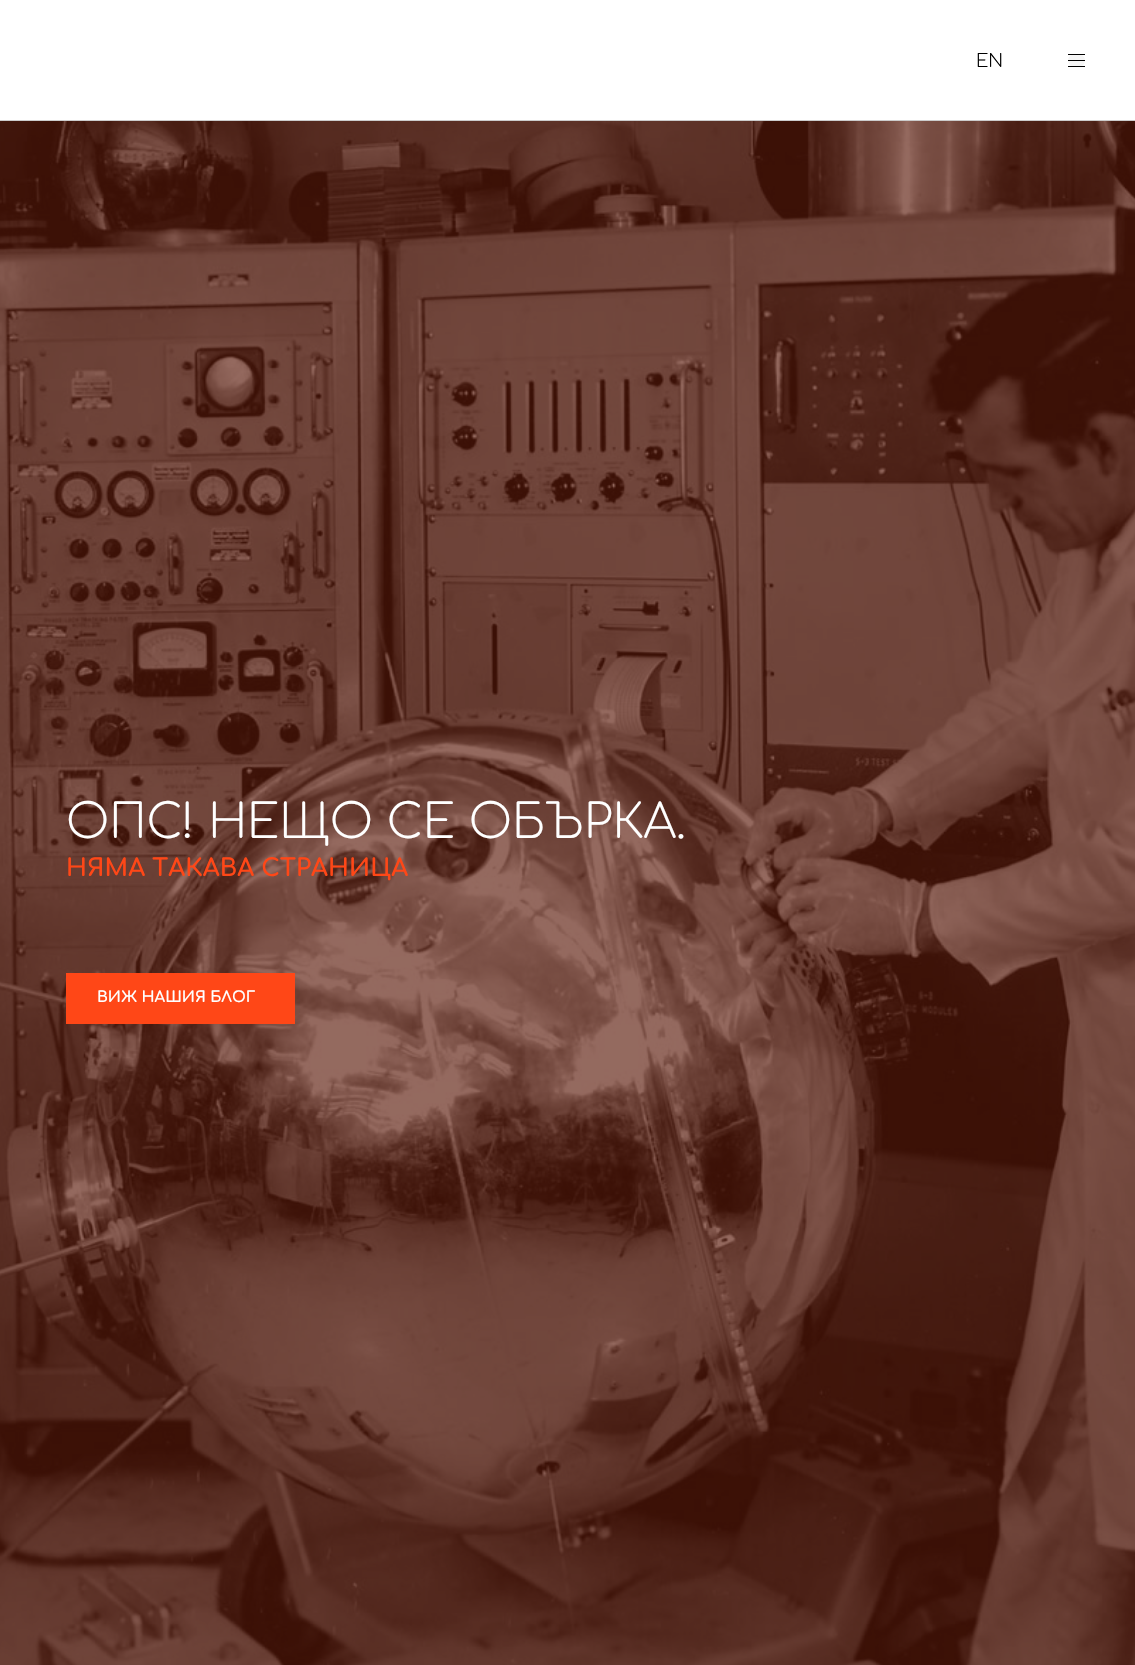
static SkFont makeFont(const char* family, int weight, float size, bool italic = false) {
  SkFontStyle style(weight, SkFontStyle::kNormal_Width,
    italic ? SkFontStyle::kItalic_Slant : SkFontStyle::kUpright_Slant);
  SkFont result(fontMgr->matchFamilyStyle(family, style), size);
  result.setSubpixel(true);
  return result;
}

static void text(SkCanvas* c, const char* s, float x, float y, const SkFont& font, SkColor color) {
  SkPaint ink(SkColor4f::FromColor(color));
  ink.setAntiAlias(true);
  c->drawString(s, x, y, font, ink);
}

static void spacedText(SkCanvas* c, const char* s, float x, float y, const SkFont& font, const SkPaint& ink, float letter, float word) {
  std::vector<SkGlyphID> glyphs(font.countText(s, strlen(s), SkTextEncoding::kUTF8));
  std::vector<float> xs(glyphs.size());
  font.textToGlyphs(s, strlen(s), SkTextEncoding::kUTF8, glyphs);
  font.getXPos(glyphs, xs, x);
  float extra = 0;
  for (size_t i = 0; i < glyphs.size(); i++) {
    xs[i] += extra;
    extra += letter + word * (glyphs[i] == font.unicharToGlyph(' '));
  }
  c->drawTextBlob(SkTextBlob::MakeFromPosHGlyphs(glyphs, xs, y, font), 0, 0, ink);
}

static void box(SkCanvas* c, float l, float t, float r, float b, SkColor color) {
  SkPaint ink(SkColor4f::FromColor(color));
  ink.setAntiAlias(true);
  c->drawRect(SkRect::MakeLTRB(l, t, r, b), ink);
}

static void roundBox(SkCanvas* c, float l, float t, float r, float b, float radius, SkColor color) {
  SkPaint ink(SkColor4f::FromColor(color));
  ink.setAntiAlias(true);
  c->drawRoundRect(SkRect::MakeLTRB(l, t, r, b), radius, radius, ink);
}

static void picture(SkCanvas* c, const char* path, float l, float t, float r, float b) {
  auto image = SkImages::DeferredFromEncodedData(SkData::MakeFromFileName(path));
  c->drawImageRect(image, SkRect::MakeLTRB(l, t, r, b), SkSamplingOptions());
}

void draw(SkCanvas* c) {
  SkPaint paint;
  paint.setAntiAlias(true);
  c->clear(0xffffffff);
  box(c, 0, 120, 1135, 121, 0xffcccccc);
  SkFont face1 = makeFont("Comfortaa", 300, 18);
  text(c, "EN", 976, 67, face1, 0xff000000);
  roundBox(c, 1068, 54, 1085, 67, 6.5f, 0xfff5f5f5);
  box(c, 1068, 54, 1085, 55, 0xff000000);
  box(c, 1068, 60, 1085, 61, 0xff000000);
  box(c, 1068, 66, 1085, 67, 0xff000000);
  picture(c, "img_01.png", 0, 121, 1135, 1665);
  SkFont face2 = makeFont("Comfortaa", 300, 47);
  text(c, "ОПС! НЕЩО СЕ ОБЪРКА.", 66, 838, face2, 0xffffffff);
  SkFont face3 = makeFont("Comfortaa", 700, 24);
  paint.setColor(0xffff4717);
  spacedText(c, "НЯМА ТАКАВА СТРАНИЦА", 66, 876, face3, paint, 0.1f, 0);
  box(c, 66, 973, 295, 1024, 0xffff4717);
  SkFont face4 = makeFont("Comfortaa", 700, 15);
  text(c, "ВИЖ НАШИЯ БЛОГ", 97, 1002, face4, 0xffffffff);
}
